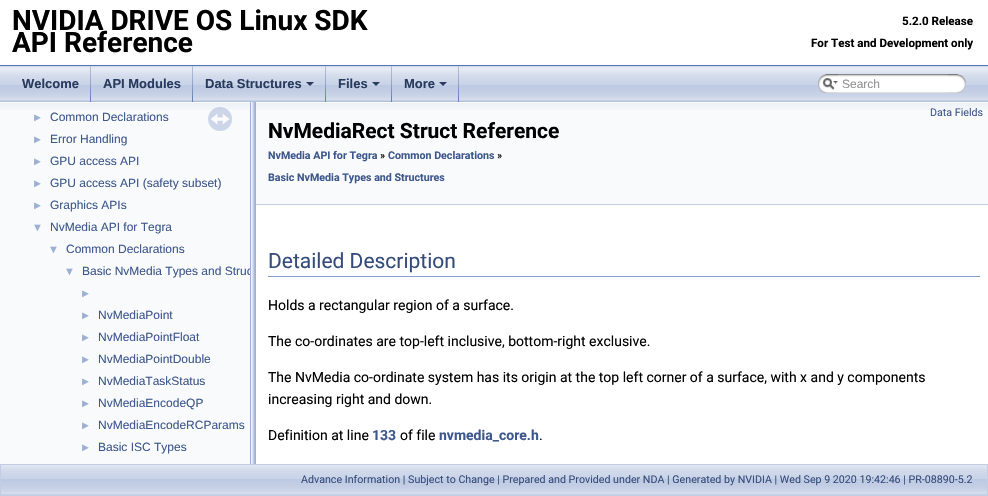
static SkFont makeFont(const char* family, int weight, float size, bool italic = false) {
  SkFontStyle style(weight, SkFontStyle::kNormal_Width,
    italic ? SkFontStyle::kItalic_Slant : SkFontStyle::kUpright_Slant);
  SkFont result(fontMgr->matchFamilyStyle(family, style), size);
  result.setSubpixel(true);
  return result;
}

static void text(SkCanvas* c, const char* s, float x, float y, const SkFont& font, SkColor color) {
  SkPaint ink(SkColor4f::FromColor(color));
  ink.setAntiAlias(true);
  c->drawString(s, x, y, font, ink);
}

static void box(SkCanvas* c, float l, float t, float r, float b, SkColor color) {
  SkPaint ink(SkColor4f::FromColor(color));
  ink.setAntiAlias(true);
  c->drawRect(SkRect::MakeLTRB(l, t, r, b), ink);
}

static void picture(SkCanvas* c, const char* path, float l, float t, float r, float b) {
  auto image = SkImages::DeferredFromEncodedData(SkData::MakeFromFileName(path));
  c->drawImageRect(image, SkRect::MakeLTRB(l, t, r, b), SkSamplingOptions());
}

void draw(SkCanvas* c) {
  SkPaint paint;
  paint.setAntiAlias(true);
  c->clear(0xffffffff);
  box(c, 0, 65, 988, 66, 0xff5373b4);
  SkFont face1 = makeFont("Roboto", 700, 28);
  text(c, "NVIDIA DRIVE OS Linux SDK", 12, 30, face1, 0xff000000);
  text(c, "API Reference", 12, 52, face1, 0xff000000);
  SkFont face2 = makeFont("Roboto", 700, 11.6f);
  text(c, "5.2.0 Release", 902, 25, face2, 0xff000000);
  text(c, "For Test and Development only", 811, 47, face2, 0xff000000);
  picture(c, "img_01.png", 0, 66, 988, 102);
  picture(c, "img_02.png", 90, 66, 91, 102);
  SkFont face3 = makeFont("Liberation Sans", 700, 13);
  text(c, "Welcome", 22, 88, face3, 0xff283a5d);
  picture(c, "img_02.png", 192, 66, 193, 102);
  text(c, "API Modules", 103, 88, face3, 0xff283a5d);
  picture(c, "img_02.png", 325, 66, 326, 102);
  text(c, "Data Structures", 205, 88, face3, 0xff283a5d);
  paint.setColor(0xff283a5d);
  c->drawPath(SkPathBuilder().moveTo(306, 82).lineTo(314, 82).lineTo(310, 86).close().detach(), paint);
  picture(c, "img_02.png", 391, 66, 392, 102);
  text(c, "Files", 338, 88, face3, 0xff283a5d);
  c->drawPath(SkPathBuilder().moveTo(372, 82).lineTo(380, 82).lineTo(376, 86).close().detach(), paint);
  picture(c, "img_02.png", 458, 66, 459, 102);
  text(c, "More", 404, 88, face3, 0xff283a5d);
  c->drawPath(SkPathBuilder().moveTo(439, 82).lineTo(447, 82).lineTo(443, 86).close().detach(), paint);
  picture(c, "img_03.png", 818, 74, 838, 93);
  picture(c, "img_04.png", 823, 78, 838, 90);
  picture(c, "img_05.png", 838, 74, 948, 93);
  SkFont face4 = makeFont("Liberation Sans", 400, 12);
  text(c, "Search", 842, 88, face4, 0xff909090);
  picture(c, "img_06.png", 948, 74, 966, 93);
  box(c, 0, 110, 250, 464, 0xfff9fafc);
  picture(c, "img_07.png", 0, 102, 250, 110);
  picture(c, "img_08.png", 208, 107, 232, 131);
  SkFont face5 = makeFont("Liberation Sans", 400, 11);
  text(c, "►", 32, 121, face5, 0xff9cafd4);
  text(c, "Common Declarations", 50, 121, face4, 0xff3d578c);
  text(c, "►", 32, 143, face5, 0xff9cafd4);
  text(c, "Error Handling", 50, 143, face4, 0xff3d578c);
  text(c, "►", 32, 165, face5, 0xff9cafd4);
  text(c, "GPU access API", 50, 165, face4, 0xff3d578c);
  text(c, "►", 32, 187, face5, 0xff9cafd4);
  text(c, "GPU access API (safety subset)", 50, 187, face4, 0xff3d578c);
  text(c, "►", 32, 209, face5, 0xff9cafd4);
  text(c, "Graphics APIs", 50, 209, face4, 0xff3d578c);
  text(c, "▼", 32, 231, face5, 0xff9cafd4);
  text(c, "NvMedia API for Tegra", 50, 231, face4, 0xff3d578c);
  text(c, "▼", 48, 253, face5, 0xff9cafd4);
  text(c, "Common Declarations", 66, 253, face4, 0xff3d578c);
  text(c, "▼", 64, 275, face5, 0xff9cafd4);
  text(c, "Basic NvMedia Types and Struc", 82, 275, face4, 0xff3d578c);
  text(c, "►", 80, 297, face5, 0xff9cafd4);
  text(c, "►", 80, 319, face5, 0xff9cafd4);
  text(c, "NvMediaPoint", 98, 319, face4, 0xff3d578c);
  text(c, "►", 80, 341, face5, 0xff9cafd4);
  text(c, "NvMediaPointFloat", 98, 341, face4, 0xff3d578c);
  text(c, "►", 80, 363, face5, 0xff9cafd4);
  text(c, "NvMediaPointDouble", 98, 363, face4, 0xff3d578c);
  text(c, "►", 80, 385, face5, 0xff9cafd4);
  text(c, "NvMediaTaskStatus", 98, 385, face4, 0xff3d578c);
  text(c, "►", 80, 407, face5, 0xff9cafd4);
  text(c, "NvMediaEncodeQP", 98, 407, face4, 0xff3d578c);
  text(c, "►", 80, 429, face5, 0xff9cafd4);
  text(c, "NvMediaEncodeRCParams", 98, 429, face4, 0xff3d578c);
  text(c, "►", 80, 451, face5, 0xff9cafd4);
  text(c, "Basic ISC Types", 98, 451, face4, 0xff3d578c);
  picture(c, "img_09.png", 250, 102, 256, 464);
  box(c, 256, 110, 988, 204, 0xfff9fafc);
  picture(c, "img_10.png", 256, 102, 988, 110);
  box(c, 256, 204, 988, 205, 0xffc4cfe5);
  SkFont face6 = makeFont("Roboto", 400, 10.67f);
  text(c, "Data Fields", 930, 116, face6, 0xff3d578c);
  SkFont face7 = makeFont("Roboto", 700, 21);
  text(c, "NvMediaRect Struct Reference", 268, 138, face7, 0xff000000);
  SkFont face8 = makeFont("Roboto", 700, 10.67f);
  text(c, "NvMedia API for Tegra", 268, 159, face8, 0xff3d578c);
  text(c, "»", 380, 159, face6, 0xff000000);
  text(c, "Common Declarations", 388, 159, face8, 0xff3d578c);
  text(c, "»", 497, 159, face6, 0xff000000);
  text(c, "Basic NvMedia Types and Structures", 268, 181, face8, 0xff3d578c);
  box(c, 268, 276, 980, 277, 0xff879ecb);
  SkFont face9 = makeFont("Roboto", 400, 21);
  text(c, "Detailed Description", 268, 268, face9, 0xff354c7b);
  SkFont face10 = makeFont("Roboto", 400, 14);
  text(c, "Holds a rectangular region of a surface.", 268, 310, face10, 0xff000000);
  text(c, "The co-ordinates are top-left inclusive, bottom-right exclusive.", 268, 346, face10, 0xff000000);
  text(c, "The NvMedia co-ordinate system has its origin at the top left corner of a surface, with x and y components", 268, 382, face10, 0xff000000);
  text(c, "increasing right and down.", 268, 404, face10, 0xff000000);
  text(c, "Definition at line", 268, 440, face10, 0xff000000);
  SkFont face11 = makeFont("Roboto", 700, 14);
  text(c, "133", 372, 440, face11, 0xff3d578c);
  text(c, "of file", 400, 440, face10, 0xff000000);
  text(c, "nvmedia_core.h", 439, 440, face11, 0xff3d578c);
  text(c, ".", 539, 440, face10, 0xff000000);
  picture(c, "img_11.png", 1, 465, 987, 495);
  paint.setStyle(SkPaint::kStroke_Style);
  paint.setStrokeWidth(1);
  paint.setColor(0xffc2cde4);
  c->drawRect(SkRect::MakeLTRB(0.5f, 464.5f, 987.5f, 495.5f), paint);
  text(c, "Advance Information | Subject to Change | Prepared and Provided under NDA | Generated by NVIDIA | Wed Sep 9 2020 19:42:46 | PR-08890-5.2", 301, 483, face6, 0xff354c7b);
}
